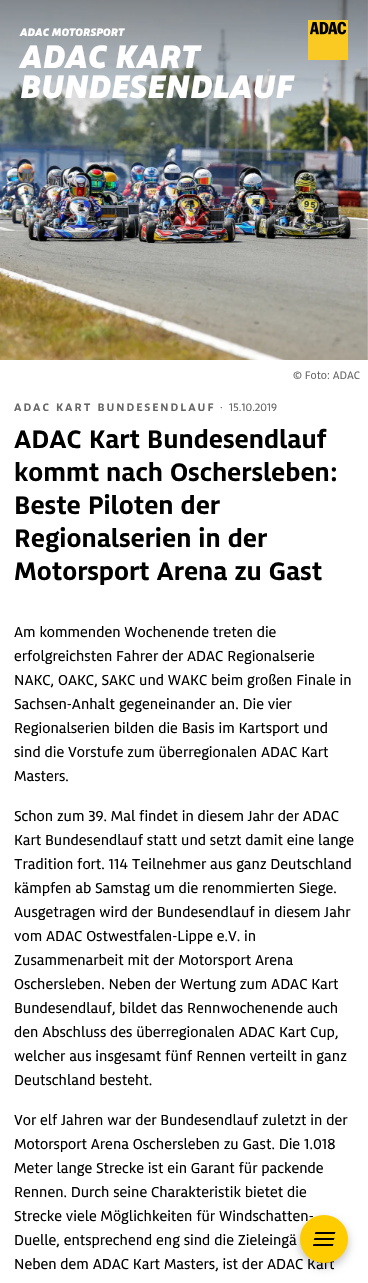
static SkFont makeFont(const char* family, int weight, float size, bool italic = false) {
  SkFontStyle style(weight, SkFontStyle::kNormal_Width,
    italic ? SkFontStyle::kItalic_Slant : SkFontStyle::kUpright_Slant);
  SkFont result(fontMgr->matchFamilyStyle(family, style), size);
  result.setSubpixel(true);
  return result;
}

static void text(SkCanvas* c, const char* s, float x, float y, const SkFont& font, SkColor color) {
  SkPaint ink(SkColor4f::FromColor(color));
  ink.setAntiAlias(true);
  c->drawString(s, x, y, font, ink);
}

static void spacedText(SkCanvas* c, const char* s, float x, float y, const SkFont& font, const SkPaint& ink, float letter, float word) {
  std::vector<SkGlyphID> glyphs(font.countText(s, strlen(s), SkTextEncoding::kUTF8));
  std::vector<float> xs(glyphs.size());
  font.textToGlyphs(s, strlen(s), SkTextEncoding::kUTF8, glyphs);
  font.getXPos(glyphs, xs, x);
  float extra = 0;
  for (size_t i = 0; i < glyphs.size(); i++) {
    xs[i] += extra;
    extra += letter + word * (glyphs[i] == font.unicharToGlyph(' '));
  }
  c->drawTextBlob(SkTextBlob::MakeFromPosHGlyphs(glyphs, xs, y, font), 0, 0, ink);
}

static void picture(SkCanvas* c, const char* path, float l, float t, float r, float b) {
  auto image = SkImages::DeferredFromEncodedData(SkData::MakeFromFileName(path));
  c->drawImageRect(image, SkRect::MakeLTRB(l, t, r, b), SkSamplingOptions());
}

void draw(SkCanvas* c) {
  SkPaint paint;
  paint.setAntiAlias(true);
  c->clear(0xffffffff);
  picture(c, "img_01.png", 0, 0, 368, 360);
  {
    const SkColor colors[] = {0x66000000, 0x00000000};
    const float stops[] = {0, 1};
    const SkPoint ends[] = {{184, 0}, {184, 122}};
    paint.setShader(SkGradientShader::MakeLinear(ends, colors, stops, 2, SkTileMode::kClamp));
    paint.setAlpha(255);
  }
  c->drawRect(SkRect::MakeLTRB(0, 0, 368, 115), paint);
  SkFont face1 = makeFont("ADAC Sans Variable", 800, 12, true);
  text(c, "ADAC MOTORSPORT", 20, 36, face1, 0xffffffff);
  SkFont face2 = makeFont("ADAC Sans Variable", 800, 36, true);
  text(c, "ADAC KART", 20, 68, face2, 0xffffffff);
  text(c, "BUNDESENDLAUF", 20, 98, face2, 0xffffffff);
  picture(c, "img_02.png", 308, 20, 348, 60);
  SkFont face3 = makeFont("ADAC Sans Variable", 400, 12);
  text(c, "© Foto: ADAC", 293, 379, face3, 0xff666666);
  SkFont face4 = makeFont("ADAC Sans Variable", 700, 12);
  paint.setShader(nullptr);
  paint.setColor(0xff666666);
  spacedText(c, "ADAC KART BUNDESENDLAUF", 14, 411, face4, paint, 2, 0);
  text(c, "·", 220, 411, face3, 0xff666666);
  text(c, "15.10.2019", 229, 411, face3, 0xff666666);
  SkFont face5 = makeFont("ADAC Sans Variable", 700, 28);
  text(c, "ADAC Kart Bundesendlauf", 14, 448, face5, 0xff000000);
  text(c, "kommt nach Oschersleben:", 14, 481, face5, 0xff000000);
  text(c, "Beste Piloten der", 14, 514, face5, 0xff000000);
  text(c, "Regionalserien in der", 14, 547, face5, 0xff000000);
  text(c, "Motorsport Arena zu Gast", 14, 580, face5, 0xff000000);
  SkFont face6 = makeFont("ADAC Sans Variable", 400, 16);
  text(c, "Am kommenden Wochenende treten die", 14, 637, face6, 0xff000000);
  text(c, "erfolgreichsten Fahrer der ADAC Regionalserie", 14, 661, face6, 0xff000000);
  text(c, "NAKC, OAKC, SAKC und WAKC beim großen Finale in", 14, 685, face6, 0xff000000);
  text(c, "Sachsen-Anhalt gegeneinander an. Die vier", 14, 709, face6, 0xff000000);
  text(c, "Regionalserien bilden die Basis im Kartsport und", 14, 733, face6, 0xff000000);
  text(c, "sind die Vorstufe zum überregionalen ADAC Kart", 14, 757, face6, 0xff000000);
  text(c, "Masters.", 14, 781, face6, 0xff000000);
  text(c, "Schon zum 39. Mal findet in diesem Jahr der ADAC", 14, 821, face6, 0xff000000);
  text(c, "Kart Bundesendlauf statt und setzt damit eine lange", 14, 845, face6, 0xff000000);
  text(c, "Tradition fort. 114 Teilnehmer aus ganz Deutschland", 14, 869, face6, 0xff000000);
  text(c, "kämpfen ab Samstag um die renommierten Siege.", 14, 893, face6, 0xff000000);
  text(c, "Ausgetragen wird der Bundesendlauf in diesem Jahr", 14, 917, face6, 0xff000000);
  text(c, "vom ADAC Ostwestfalen-Lippe e.V. in", 14, 941, face6, 0xff000000);
  text(c, "Zusammenarbeit mit der Motorsport Arena", 14, 965, face6, 0xff000000);
  text(c, "Oschersleben. Neben der Wertung zum ADAC Kart", 14, 989, face6, 0xff000000);
  text(c, "Bundesendlauf, bildet das Rennwochenende auch", 14, 1013, face6, 0xff000000);
  text(c, "den Abschluss des überregionalen ADAC Kart Cup,", 14, 1037, face6, 0xff000000);
  text(c, "welcher aus insgesamt fünf Rennen verteilt in ganz", 14, 1061, face6, 0xff000000);
  text(c, "Deutschland besteht.", 14, 1085, face6, 0xff000000);
  text(c, "Vor elf Jahren war der Bundesendlauf zuletzt in der", 14, 1125, face6, 0xff000000);
  text(c, "Motorsport Arena Oschersleben zu Gast. Die 1.018", 14, 1149, face6, 0xff000000);
  text(c, "Meter lange Strecke ist ein Garant für packende", 14, 1173, face6, 0xff000000);
  text(c, "Rennen. Durch seine Charakteristik bietet die", 14, 1197, face6, 0xff000000);
  text(c, "Strecke viele Möglichkeiten für Windschatten-", 14, 1221, face6, 0xff000000);
  text(c, "Duelle, entsprechend eng sind die Zieleingä", 14, 1245, face6, 0xff000000);
  text(c, "Neben dem ADAC Kart Masters, ist der ADAC Kart", 14, 1269, face6, 0xff000000);
  paint.setColor(0x40000000);
  paint.setMaskFilter(SkMaskFilter::MakeBlur(kNormal_SkBlurStyle, 4));
  c->drawRoundRect(SkRect::MakeLTRB(300, 1219, 348, 1267), 24, 24, paint);
  paint.setMaskFilter(nullptr);
  paint.setColor(0xffffcc00);
  c->drawCircle(324, 1239, 24, paint);
  picture(c, "img_03.png", 313, 1232, 336, 1246);
}
